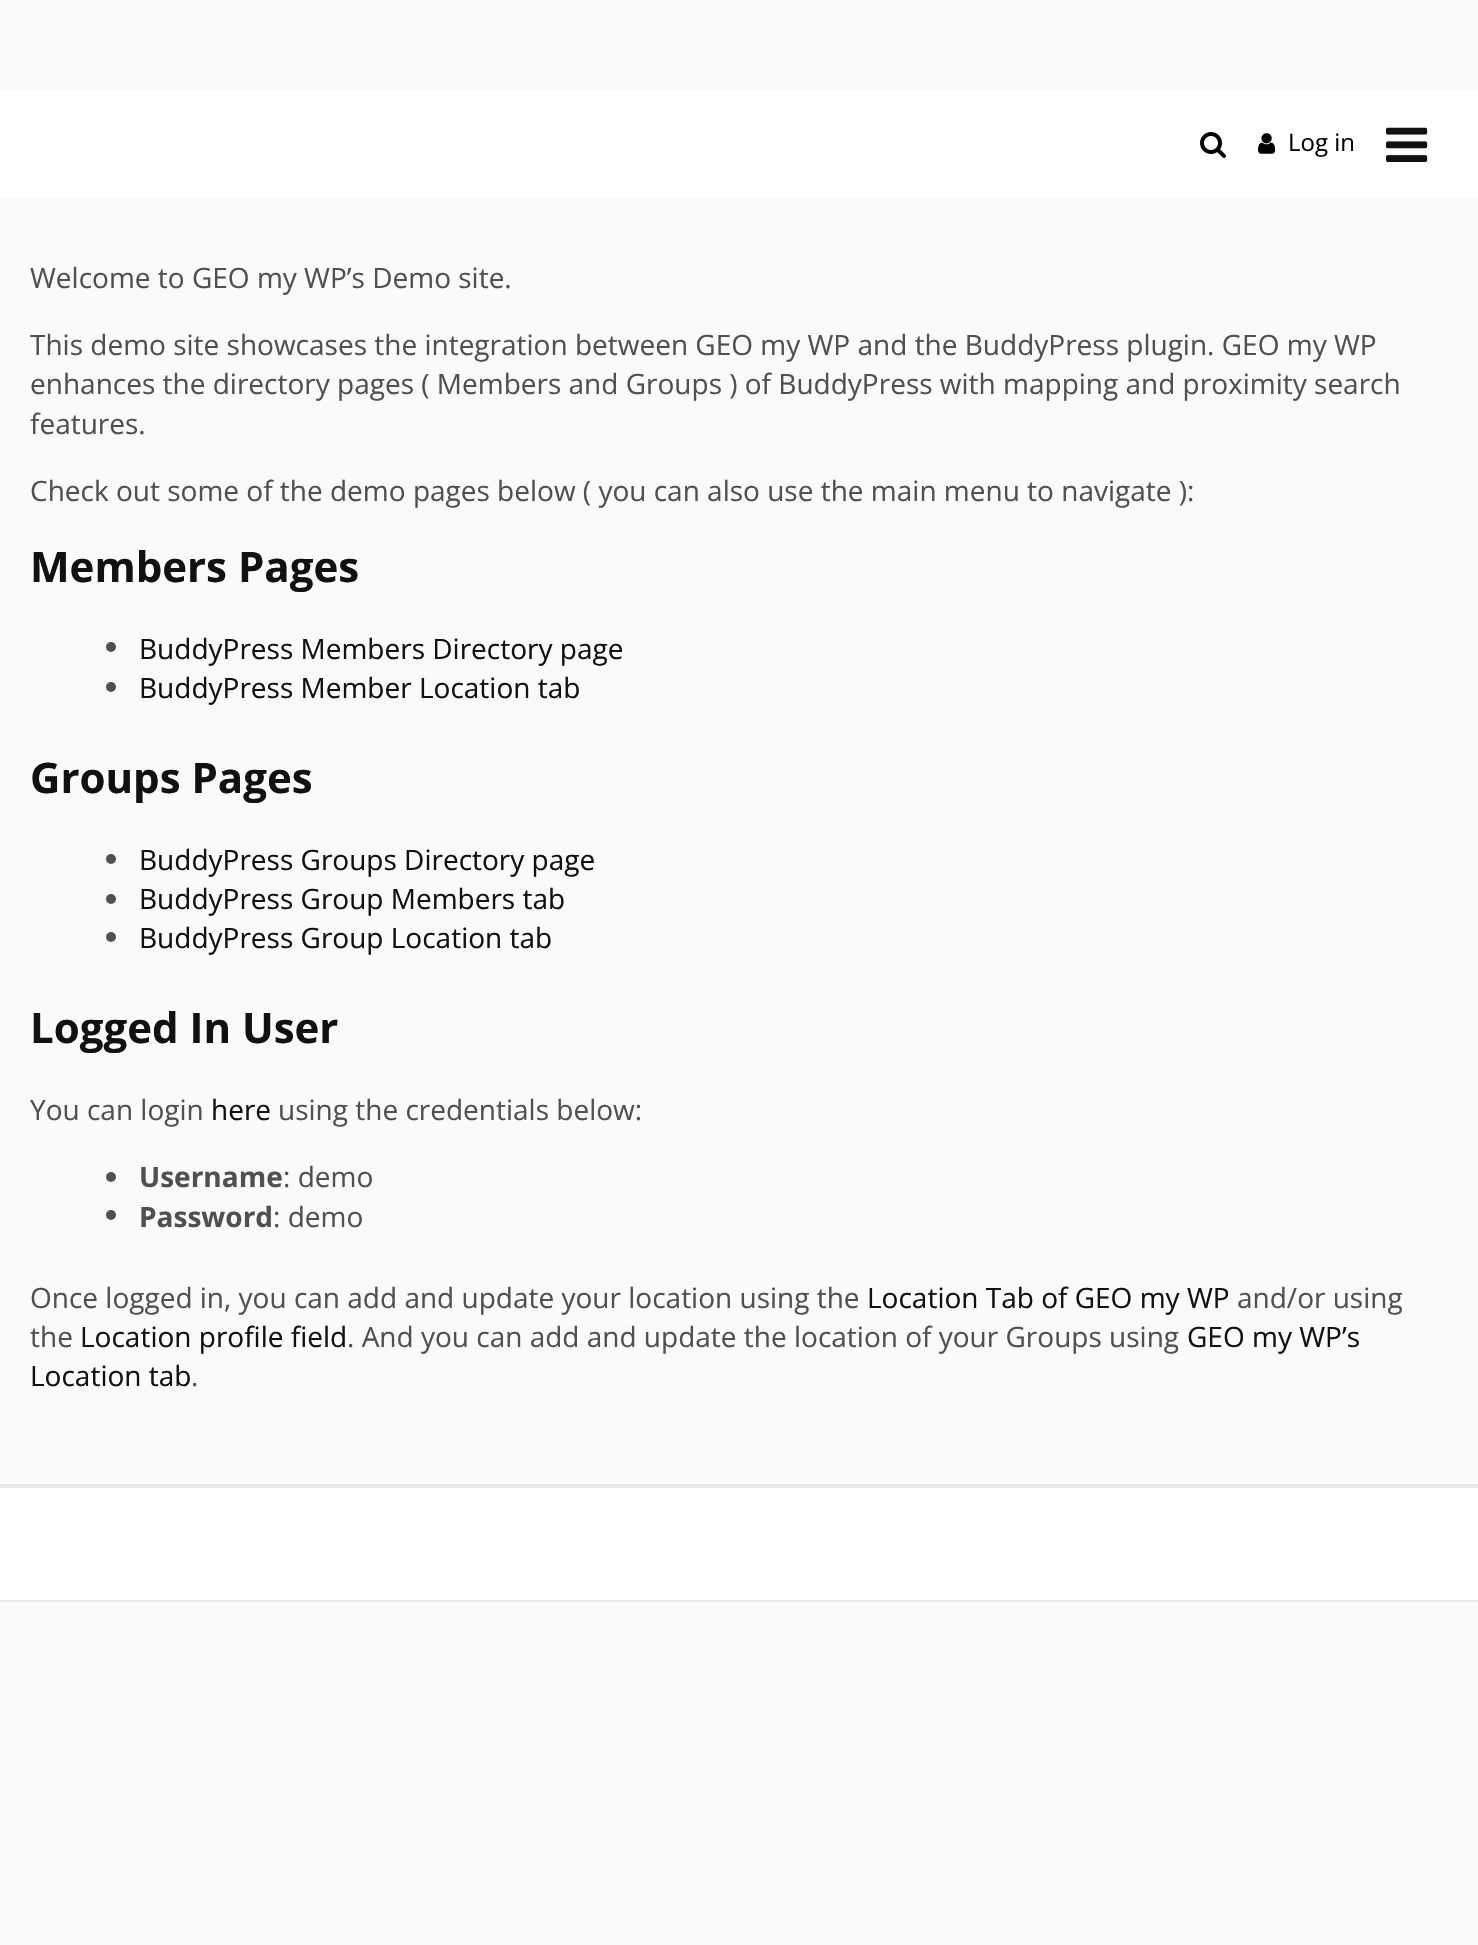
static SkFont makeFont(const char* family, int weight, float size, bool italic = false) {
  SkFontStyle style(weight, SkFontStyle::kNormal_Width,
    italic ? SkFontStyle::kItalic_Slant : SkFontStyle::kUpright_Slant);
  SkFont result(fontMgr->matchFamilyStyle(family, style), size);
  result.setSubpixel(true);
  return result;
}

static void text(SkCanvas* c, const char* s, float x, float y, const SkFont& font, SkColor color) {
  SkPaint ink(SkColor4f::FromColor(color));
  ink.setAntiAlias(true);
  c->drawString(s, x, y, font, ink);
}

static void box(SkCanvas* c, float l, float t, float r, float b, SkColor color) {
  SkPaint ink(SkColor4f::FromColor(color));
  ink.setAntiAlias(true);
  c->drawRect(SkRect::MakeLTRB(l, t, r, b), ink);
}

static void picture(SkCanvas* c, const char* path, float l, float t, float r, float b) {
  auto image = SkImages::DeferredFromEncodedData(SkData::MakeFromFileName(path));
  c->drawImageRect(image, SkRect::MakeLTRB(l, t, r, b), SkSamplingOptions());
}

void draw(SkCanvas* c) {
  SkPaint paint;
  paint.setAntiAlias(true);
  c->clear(0xfffafafa);
  box(c, 0, 90, 1478, 198, 0xffffffff);
  picture(c, "img_01.png", 1200, 132, 1226, 158);
  picture(c, "img_02.png", 1258, 133, 1276, 154);
  SkFont face1 = makeFont("Open Sans", 400, 24);
  text(c, "Log in", 1288, 151, face1, 0xff000000);
  picture(c, "img_03.png", 1386, 127, 1428, 162);
  SkFont face2 = makeFont("Open Sans", 400, 28);
  text(c, "Welcome to GEO my WP’s Demo site.", 30, 288, face2, 0xff505050);
  text(c, "This demo site showcases the integration between GEO my WP and the BuddyPress plugin. GEO my WP", 30, 355, face2, 0xff505050);
  text(c, "enhances the directory pages ( Members and Groups ) of BuddyPress with mapping and proximity search", 30, 394, face2, 0xff505050);
  text(c, "features.", 30, 434, face2, 0xff505050);
  text(c, "Check out some of the demo pages below ( you can also use the main menu to navigate ):", 30, 501, face2, 0xff505050);
  SkFont face3 = makeFont("Open Sans", 700, 42);
  text(c, "Members Pages", 30, 582, face3, 0xff111111);
  paint.setColor(0xff505050);
  c->drawCircle(111, 647, 5, paint);
  text(c, "BuddyPress Members Directory page", 139, 659, face2, 0xff111111);
  c->drawCircle(111, 687, 5, paint);
  text(c, "BuddyPress Member Location tab", 139, 698, face2, 0xff111111);
  text(c, "Groups Pages", 30, 793, face3, 0xff111111);
  c->drawCircle(111, 859, 5, paint);
  text(c, "BuddyPress Groups Directory page", 139, 870, face2, 0xff111111);
  c->drawCircle(111, 899, 5, paint);
  text(c, "BuddyPress Group Members tab", 139, 909, face2, 0xff111111);
  c->drawCircle(111, 937, 5, paint);
  text(c, "BuddyPress Group Location tab", 139, 948, face2, 0xff111111);
  text(c, "Logged In User", 30, 1043, face3, 0xff111111);
  text(c, "You can login", 30, 1120, face2, 0xff505050);
  text(c, "here", 211, 1120, face2, 0xff111111);
  text(c, "using the credentials below:", 278, 1120, face2, 0xff505050);
  c->drawCircle(111, 1177, 5, paint);
  SkFont face4 = makeFont("Open Sans", 700, 28);
  text(c, "Username", 139, 1187, face4, 0xff505050);
  text(c, ": demo", 283, 1187, face2, 0xff505050);
  c->drawCircle(111, 1215, 5, paint);
  text(c, "Password", 139, 1227, face4, 0xff505050);
  text(c, ": demo", 273, 1227, face2, 0xff505050);
  text(c, "Once logged in, you can add and update your location using the", 30, 1308, face2, 0xff505050);
  text(c, "Location Tab of GEO my WP", 867, 1308, face2, 0xff111111);
  text(c, "and/or using", 1237, 1308, face2, 0xff505050);
  text(c, "the", 30, 1347, face2, 0xff505050);
  text(c, "Location profile field", 80, 1347, face2, 0xff111111);
  text(c, ". And you can add and update the location of your Groups using", 347, 1347, face2, 0xff505050);
  text(c, "GEO my WP’s", 1187, 1347, face2, 0xff111111);
  text(c, "Location tab", 30, 1386, face2, 0xff111111);
  text(c, ".", 191, 1386, face2, 0xff505050);
  box(c, 0, 1488, 1478, 1600, 0xffffffff);
  box(c, 0, 1484, 1478, 1488, 0xffe8e8e8);
  box(c, 0, 1600, 1478, 1602, 0xffe8e8e8);
}
